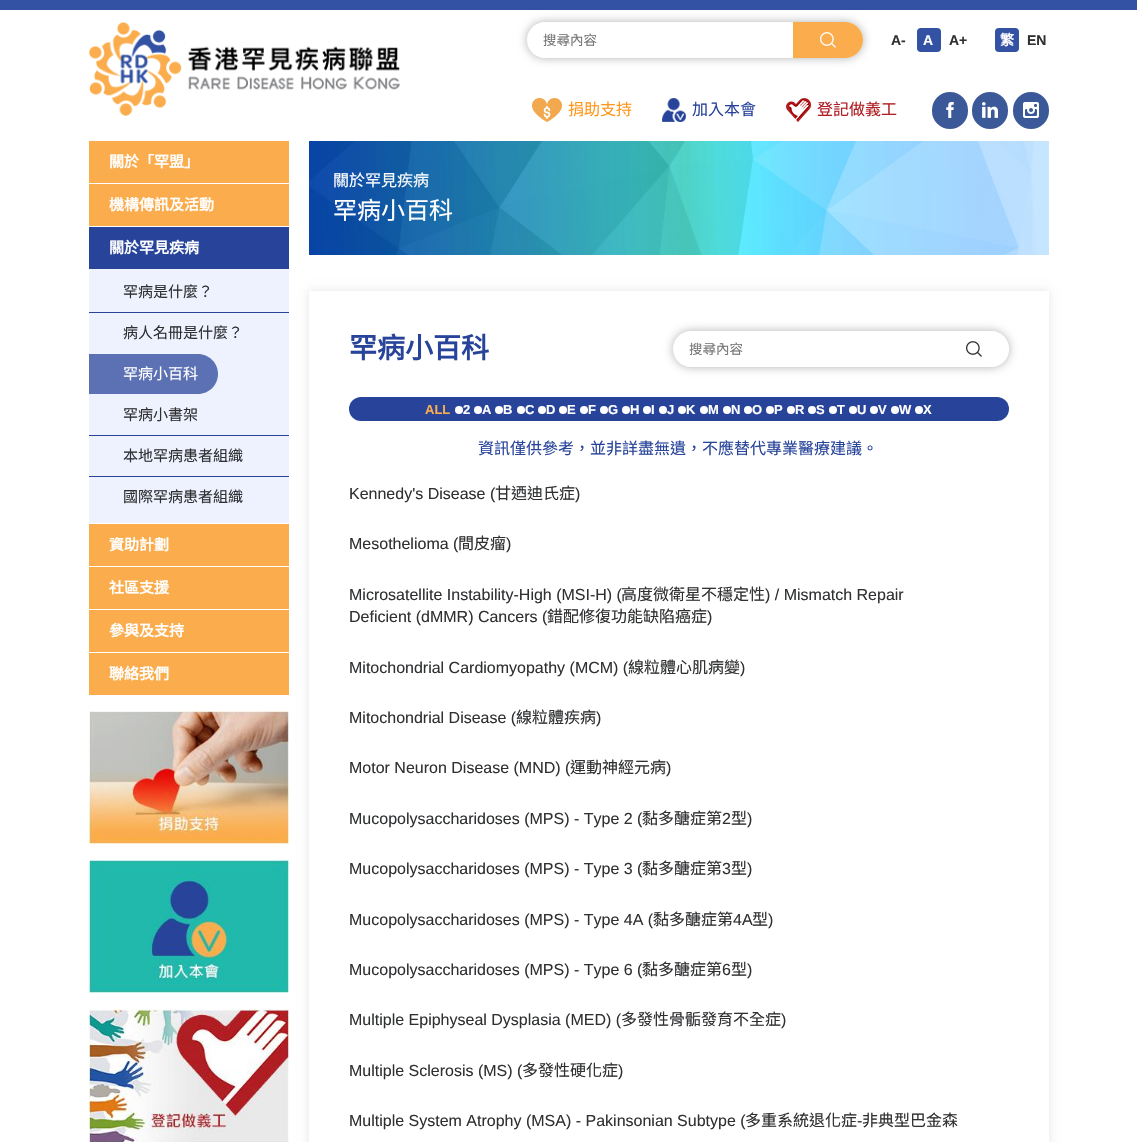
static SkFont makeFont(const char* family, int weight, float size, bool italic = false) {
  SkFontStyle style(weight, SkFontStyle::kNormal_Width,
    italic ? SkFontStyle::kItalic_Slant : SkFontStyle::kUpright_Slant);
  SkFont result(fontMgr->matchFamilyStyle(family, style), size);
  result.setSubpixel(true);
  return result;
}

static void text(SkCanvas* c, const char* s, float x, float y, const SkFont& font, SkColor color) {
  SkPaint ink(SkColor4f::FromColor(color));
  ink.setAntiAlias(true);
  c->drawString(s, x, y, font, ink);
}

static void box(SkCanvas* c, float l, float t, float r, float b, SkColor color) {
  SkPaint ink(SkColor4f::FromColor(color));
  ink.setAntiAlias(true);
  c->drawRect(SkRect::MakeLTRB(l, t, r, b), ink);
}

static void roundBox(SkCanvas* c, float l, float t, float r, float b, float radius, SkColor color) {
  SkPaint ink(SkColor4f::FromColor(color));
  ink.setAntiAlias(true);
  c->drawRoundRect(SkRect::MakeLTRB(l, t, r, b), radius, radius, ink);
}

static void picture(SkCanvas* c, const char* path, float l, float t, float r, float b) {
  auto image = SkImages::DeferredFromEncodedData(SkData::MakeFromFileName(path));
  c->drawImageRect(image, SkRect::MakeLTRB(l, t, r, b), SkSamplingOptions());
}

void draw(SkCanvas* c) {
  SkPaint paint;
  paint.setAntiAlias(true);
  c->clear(0xffffffff);
  box(c, 0, 0, 1137, 10, 0xff3352a3);
  picture(c, "img_01.png", 89, 22, 400, 116);
  c->save();
  c->clipPath(SkPathBuilder(SkPathFillType::kEvenOdd).moveTo(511, 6).lineTo(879, 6).lineTo(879, 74).lineTo(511, 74).close().moveTo(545, 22).lineTo(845, 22).cubicTo(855, 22, 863, 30, 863, 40).cubicTo(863, 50, 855, 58, 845, 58).lineTo(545, 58).cubicTo(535, 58, 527, 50, 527, 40).cubicTo(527, 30, 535, 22, 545, 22).close().detach(), true);
  paint.setColor(0x4d000000);
  paint.setMaskFilter(SkMaskFilter::MakeBlur(kNormal_SkBlurStyle, 5));
  c->drawRoundRect(SkRect::MakeLTRB(527, 22, 863, 58), 18, 18, paint);
  paint.setMaskFilter(nullptr);
  c->restore();
  box(c, 543, 22, 544, 58, 0xffffffff);
  SkFont face1 = makeFont("Noto Sans CJK TC", 400, 13.5f);
  text(c, "搜尋內容", 543, 45, face1, 0xff757575);
  paint.setColor(0xfffbad4d);
  c->drawPath(SkPathBuilder().moveTo(793, 22).lineTo(845, 22).cubicTo(855, 22, 863, 30, 863, 40).cubicTo(863, 50, 855, 58, 845, 58).lineTo(793, 58).close().detach(), paint);
  picture(c, "img_02.png", 820, 32, 836, 48);
  SkFont face2 = makeFont("Liberation Sans", 700, 14);
  text(c, "A-", 891, 45, face2, 0xff2f3032);
  roundBox(c, 917, 28, 941, 52, 4, 0xff3352a3);
  text(c, "A", 923, 45, face2, 0xffffffff);
  text(c, "A+", 949, 45, face2, 0xff2f3032);
  roundBox(c, 995, 28, 1019, 52, 4, 0xff3352a3);
  SkFont face3 = makeFont("Noto Sans CJK TC", 700, 14);
  text(c, "繁", 1000, 45, face3, 0xffffffff);
  text(c, "EN", 1027, 45, face2, 0xff2f3032);
  picture(c, "img_03.png", 532, 98, 562, 122);
  SkFont face4 = makeFont("Noto Sans CJK TC", 400, 16);
  text(c, "捐助支持", 568, 115, face4, 0xffff9619);
  picture(c, "img_04.png", 662, 98, 686, 122);
  text(c, "加入本會", 692, 115, face4, 0xff28449a);
  picture(c, "img_05.png", 786, 98, 811, 122);
  text(c, "登記做義工", 817, 115, face4, 0xffb11f24);
  roundBox(c, 932, 92, 968, 129, 18, 0xff3b5998);
  picture(c, "img_06.png", 946, 102, 954, 118);
  roundBox(c, 972, 92, 1008, 129, 18, 0xff3b5998);
  picture(c, "img_07.png", 982, 102, 998, 118);
  roundBox(c, 1013, 92, 1049, 129, 18, 0xff3b5998);
  picture(c, "img_08.png", 1023, 102, 1039, 118);
  box(c, 89, 141, 289, 183, 0xfffbad4d);
  SkFont face5 = makeFont("Noto Sans CJK TC", 700, 15);
  text(c, "關於「罕盟」", 109, 167, face5, 0xffffffff);
  box(c, 89, 184, 289, 226, 0xfffbad4d);
  text(c, "機構傳訊及活動", 109, 210, face5, 0xffffffff);
  box(c, 89, 227, 289, 269, 0xff28449a);
  text(c, "關於罕見疾病", 109, 253, face5, 0xffffffff);
  box(c, 89, 269, 289, 523, 0xffeef2ff);
  box(c, 89, 312, 289, 313, 0xff28449a);
  SkFont face6 = makeFont("Noto Sans CJK TC", 400, 15);
  text(c, "罕病是什麼？", 123, 297, face6, 0xff2f3032);
  text(c, "病人名冊是什麼？", 123, 338, face6, 0xff2f3032);
  paint.setColor(0xff5c71b4);
  c->drawPath(SkPathBuilder().moveTo(89, 354).lineTo(198, 354).cubicTo(209, 354, 218, 363, 218, 374).cubicTo(218, 385, 209, 394, 198, 394).lineTo(89, 394).close().detach(), paint);
  text(c, "罕病小百科", 123, 379, face6, 0xffffffff);
  box(c, 89, 435, 289, 436, 0xff28449a);
  text(c, "罕病小書架", 123, 420, face6, 0xff2f3032);
  box(c, 89, 476, 289, 477, 0xff28449a);
  text(c, "本地罕病患者組織", 123, 461, face6, 0xff2f3032);
  text(c, "國際罕病患者組織", 123, 502, face6, 0xff2f3032);
  box(c, 89, 524, 289, 566, 0xfffbad4d);
  text(c, "資助計劃", 109, 550, face5, 0xffffffff);
  box(c, 89, 567, 289, 609, 0xfffbad4d);
  text(c, "社區支援", 109, 593, face5, 0xffffffff);
  box(c, 89, 610, 289, 652, 0xfffbad4d);
  text(c, "參與及支持", 109, 636, face5, 0xffffffff);
  box(c, 89, 653, 289, 695, 0xfffbad4d);
  text(c, "聯絡我們", 109, 679, face5, 0xffffffff);
  picture(c, "img_09.png", 89, 711, 289, 844);
  picture(c, "img_10.png", 89, 860, 289, 993);
  picture(c, "img_11.png", 89, 1009, 289, 1142);
  picture(c, "img_12.png", 309, 141, 1049, 255);
  text(c, "關於罕見疾病", 333, 186, face4, 0xffffffff);
  SkFont face7 = makeFont("Noto Sans CJK TC", 400, 24);
  text(c, "罕病小百科", 333, 219, face7, 0xffffffff);
  c->save();
  c->clipPath(SkPathBuilder(SkPathFillType::kEvenOdd).moveTo(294, 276).lineTo(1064, 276).lineTo(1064, 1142).lineTo(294, 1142).close().moveTo(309, 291).lineTo(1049, 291).lineTo(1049, 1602).lineTo(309, 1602).close().detach(), true);
  paint.setColor(0x1a000000);
  paint.setMaskFilter(SkMaskFilter::MakeBlur(kNormal_SkBlurStyle, 4.5f));
  c->drawRect(SkRect::MakeLTRB(309, 291, 1049, 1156), paint);
  paint.setMaskFilter(nullptr);
  c->restore();
  SkFont face8 = makeFont("Noto Sans CJK TC", 700, 28);
  text(c, "罕病小百科", 349, 358, face8, 0xff28449a);
  c->save();
  c->clipPath(SkPathBuilder(SkPathFillType::kEvenOdd).moveTo(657, 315).lineTo(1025, 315).lineTo(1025, 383).lineTo(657, 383).close().moveTo(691, 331).lineTo(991, 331).cubicTo(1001, 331, 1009, 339, 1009, 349).cubicTo(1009, 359, 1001, 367, 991, 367).lineTo(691, 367).cubicTo(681, 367, 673, 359, 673, 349).cubicTo(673, 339, 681, 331, 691, 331).close().detach(), true);
  paint.setColor(0x4d000000);
  paint.setMaskFilter(SkMaskFilter::MakeBlur(kNormal_SkBlurStyle, 5));
  c->drawRoundRect(SkRect::MakeLTRB(673, 331, 1009, 367), 18, 18, paint);
  paint.setMaskFilter(nullptr);
  c->restore();
  box(c, 689, 366, 690, 367, 0xffffffff);
  text(c, "搜尋內容", 689, 354, face1, 0xff757575);
  paint.setColor(0xffffffff);
  c->drawPath(SkPathBuilder().moveTo(939, 331).lineTo(991, 331).cubicTo(1001, 331, 1009, 339, 1009, 349).cubicTo(1009, 359, 1001, 367, 991, 367).lineTo(939, 367).close().detach(), paint);
  picture(c, "img_13.png", 966, 341, 982, 357);
  roundBox(c, 349, 397, 1009, 421, 12, 0xff28449a);
  SkFont face9 = makeFont("Liberation Sans", 700, 13);
  text(c, "ALL", 425, 414, face9, 0xfffbad4d);
  c->drawCircle(459, 410, 4, paint);
  text(c, "2", 463, 414, face9, 0xffffffff);
  c->drawCircle(478, 410, 4, paint);
  text(c, "A", 482, 414, face9, 0xffffffff);
  c->drawCircle(499, 410, 4, paint);
  text(c, "B", 503, 414, face9, 0xffffffff);
  c->drawCircle(521, 410, 4, paint);
  text(c, "C", 525, 414, face9, 0xffffffff);
  c->drawCircle(542, 410, 4, paint);
  text(c, "D", 546, 414, face9, 0xffffffff);
  c->drawCircle(563, 410, 4, paint);
  text(c, "E", 567, 414, face9, 0xffffffff);
  c->drawCircle(584, 410, 4, paint);
  text(c, "F", 588, 414, face9, 0xffffffff);
  c->drawCircle(604, 410, 4, paint);
  text(c, "G", 608, 414, face9, 0xffffffff);
  c->drawCircle(626, 410, 4, paint);
  text(c, "H", 630, 414, face9, 0xffffffff);
  c->drawCircle(647, 410, 4, paint);
  text(c, "I", 651, 414, face9, 0xffffffff);
  c->drawCircle(663, 410, 4, paint);
  text(c, "J", 667, 414, face9, 0xffffffff);
  c->drawCircle(682, 410, 4, paint);
  text(c, "K", 686, 414, face9, 0xffffffff);
  c->drawCircle(704, 410, 4, paint);
  text(c, "M", 708, 414, face9, 0xffffffff);
  c->drawCircle(727, 410, 4, paint);
  text(c, "N", 731, 414, face9, 0xffffffff);
  c->drawCircle(748, 410, 4, paint);
  text(c, "O", 752, 414, face9, 0xffffffff);
  c->drawCircle(770, 410, 4, paint);
  text(c, "P", 774, 414, face9, 0xffffffff);
  c->drawCircle(791, 410, 4, paint);
  text(c, "R", 795, 414, face9, 0xffffffff);
  c->drawCircle(812, 410, 4, paint);
  text(c, "S", 816, 414, face9, 0xffffffff);
  c->drawCircle(833, 410, 4, paint);
  text(c, "T", 837, 414, face9, 0xffffffff);
  c->drawCircle(853, 410, 4, paint);
  text(c, "U", 857, 414, face9, 0xffffffff);
  c->drawCircle(874, 410, 4, paint);
  text(c, "V", 878, 414, face9, 0xffffffff);
  c->drawCircle(895, 410, 4, paint);
  text(c, "W", 899, 414, face9, 0xffffffff);
  c->drawCircle(919, 410, 4, paint);
  text(c, "X", 923, 414, face9, 0xffffffff);
  text(c, "資訊僅供參考，並非詳盡無遺，不應替代專業醫療建議。", 478, 454, face4, 0xff28449a);
  SkFont face10 = makeFont("Liberation Sans", 400, 16);
  text(c, "Kennedy's Disease (", 349, 499, face10, 0xff2f3032);
  text(c, "甘迺迪氏症", 495, 499, face4, 0xff2f3032);
  text(c, ")", 575, 499, face10, 0xff2f3032);
  text(c, "Mesothelioma (", 349, 549, face10, 0xff2f3032);
  text(c, "間皮瘤", 458, 549, face4, 0xff2f3032);
  text(c, ")", 506, 549, face10, 0xff2f3032);
  text(c, "Microsatellite Instability-High (MSI-H) (", 349, 600, face10, 0xff2f3032);
  text(c, "高度微衛星不穩定性", 621, 600, face4, 0xff2f3032);
  text(c, ") / Mismatch Repair", 765, 600, face10, 0xff2f3032);
  text(c, "Deficient (dMMR) Cancers (", 349, 622, face10, 0xff2f3032);
  text(c, "錯配修復功能缺陷癌症", 547, 622, face4, 0xff2f3032);
  text(c, ")", 707, 622, face10, 0xff2f3032);
  text(c, "Mitochondrial Cardiomyopathy (MCM) (", 349, 673, face10, 0xff2f3032);
  text(c, "線粒體心肌病變", 628, 673, face4, 0xff2f3032);
  text(c, ")", 740, 673, face10, 0xff2f3032);
  text(c, "Mitochondrial Disease (", 349, 723, face10, 0xff2f3032);
  text(c, "線粒體疾病", 516, 723, face4, 0xff2f3032);
  text(c, ")", 596, 723, face10, 0xff2f3032);
  text(c, "Motor Neuron Disease (MND) (", 349, 773, face10, 0xff2f3032);
  text(c, "運動神經元病", 570, 773, face4, 0xff2f3032);
  text(c, ")", 666, 773, face10, 0xff2f3032);
  text(c, "Mucopolysaccharidoses (MPS) - Type 2 (", 349, 824, face10, 0xff2f3032);
  text(c, "黏多醣症第", 642, 824, face4, 0xff2f3032);
  text(c, "2", 722, 824, face10, 0xff2f3032);
  text(c, "型", 731, 824, face4, 0xff2f3032);
  text(c, ")", 747, 824, face10, 0xff2f3032);
  text(c, "Mucopolysaccharidoses (MPS) - Type 3 (", 349, 874, face10, 0xff2f3032);
  text(c, "黏多醣症第", 642, 874, face4, 0xff2f3032);
  text(c, "3", 722, 874, face10, 0xff2f3032);
  text(c, "型", 731, 874, face4, 0xff2f3032);
  text(c, ")", 747, 874, face10, 0xff2f3032);
  text(c, "Mucopolysaccharidoses (MPS) - Type 4A (", 349, 925, face10, 0xff2f3032);
  text(c, "黏多醣症第", 653, 925, face4, 0xff2f3032);
  text(c, "4A", 733, 925, face10, 0xff2f3032);
  text(c, "型", 752, 925, face4, 0xff2f3032);
  text(c, ")", 768, 925, face10, 0xff2f3032);
  text(c, "Mucopolysaccharidoses (MPS) - Type 6 (", 349, 975, face10, 0xff2f3032);
  text(c, "黏多醣症第", 642, 975, face4, 0xff2f3032);
  text(c, "6", 722, 975, face10, 0xff2f3032);
  text(c, "型", 731, 975, face4, 0xff2f3032);
  text(c, ")", 747, 975, face10, 0xff2f3032);
  text(c, "Multiple Epiphyseal Dysplasia (MED) (", 349, 1025, face10, 0xff2f3032);
  text(c, "多發性骨骺發育不全症", 621, 1025, face4, 0xff2f3032);
  text(c, ")", 781, 1025, face10, 0xff2f3032);
  text(c, "Multiple Sclerosis (MS) (", 349, 1076, face10, 0xff2f3032);
  text(c, "多發性硬化症", 522, 1076, face4, 0xff2f3032);
  text(c, ")", 618, 1076, face10, 0xff2f3032);
  text(c, "Multiple System Atrophy (MSA) - Pakinsonian Subtype (", 349, 1126, face10, 0xff2f3032);
  text(c, "多重系統退化症", 745, 1126, face4, 0xff2f3032);
  text(c, "-", 857, 1126, face10, 0xff2f3032);
  text(c, "非典型巴金森", 862, 1126, face4, 0xff2f3032);
}
